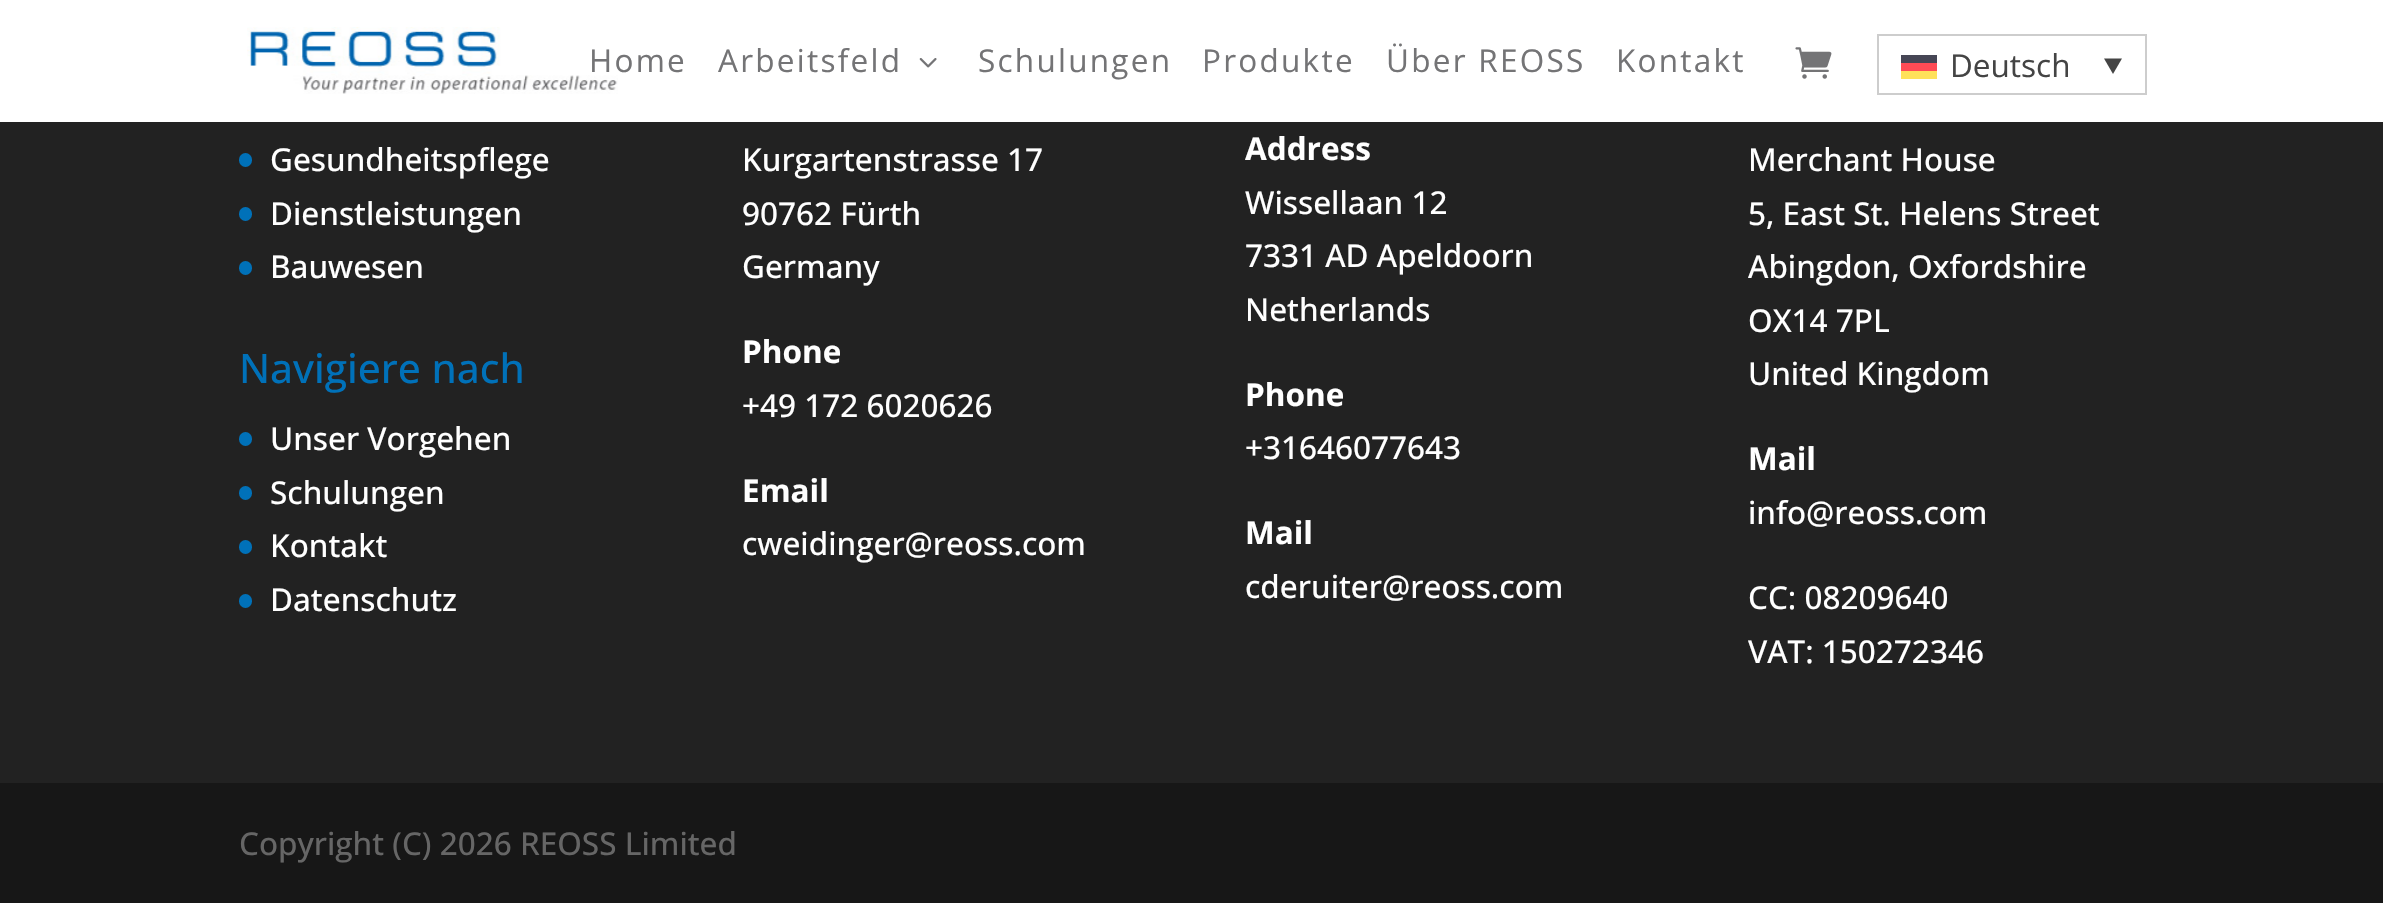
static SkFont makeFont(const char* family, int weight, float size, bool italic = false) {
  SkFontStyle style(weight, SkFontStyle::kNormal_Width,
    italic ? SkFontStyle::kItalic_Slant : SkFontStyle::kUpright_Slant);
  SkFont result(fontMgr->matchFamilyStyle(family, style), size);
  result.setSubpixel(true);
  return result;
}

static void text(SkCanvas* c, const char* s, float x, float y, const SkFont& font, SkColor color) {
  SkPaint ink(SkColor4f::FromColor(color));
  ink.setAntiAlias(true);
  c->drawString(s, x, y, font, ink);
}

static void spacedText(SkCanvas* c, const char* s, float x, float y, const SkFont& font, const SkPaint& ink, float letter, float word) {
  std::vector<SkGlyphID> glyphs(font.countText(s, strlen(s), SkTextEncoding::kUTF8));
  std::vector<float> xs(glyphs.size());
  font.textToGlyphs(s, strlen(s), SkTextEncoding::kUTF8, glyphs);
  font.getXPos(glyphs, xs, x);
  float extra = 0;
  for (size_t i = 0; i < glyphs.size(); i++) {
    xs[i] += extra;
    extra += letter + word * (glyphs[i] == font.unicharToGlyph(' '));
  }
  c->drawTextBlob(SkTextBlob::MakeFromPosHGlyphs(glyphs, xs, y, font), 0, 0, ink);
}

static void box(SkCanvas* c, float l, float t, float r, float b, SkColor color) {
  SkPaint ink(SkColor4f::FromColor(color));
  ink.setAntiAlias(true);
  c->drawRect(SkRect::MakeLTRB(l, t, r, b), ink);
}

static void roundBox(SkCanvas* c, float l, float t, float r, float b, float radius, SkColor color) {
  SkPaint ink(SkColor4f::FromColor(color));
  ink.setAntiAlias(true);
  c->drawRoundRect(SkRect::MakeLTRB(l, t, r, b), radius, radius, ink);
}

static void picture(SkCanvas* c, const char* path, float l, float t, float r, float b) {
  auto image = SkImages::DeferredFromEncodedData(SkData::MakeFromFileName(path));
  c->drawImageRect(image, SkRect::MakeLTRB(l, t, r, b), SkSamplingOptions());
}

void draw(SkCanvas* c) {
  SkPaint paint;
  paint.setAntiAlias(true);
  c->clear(0xff222222);
  box(c, 0, 0, 2383, 122, 0xffffffff);
  picture(c, "img_01.png", 247, 27, 618, 94);
  SkFont face1 = makeFont("Open Sans", 400, 31.5f);
  paint.setColor(0xff747476);
  spacedText(c, "Home", 589, 72, face1, paint, 2.25f, 0);
  spacedText(c, "Arbeitsfeld", 718, 72, face1, paint, 2.25f, 0);
  picture(c, "img_02.png", 919, 58, 937, 68);
  spacedText(c, "Schulungen", 978, 72, face1, paint, 2.25f, 0);
  spacedText(c, "Produkte", 1202, 72, face1, paint, 2.25f, 0);
  spacedText(c, "Über REOSS", 1386, 72, face1, paint, 2.25f, 0);
  spacedText(c, "Kontakt", 1616, 72, face1, paint, 2.25f, 0);
  picture(c, "img_03.png", 1795, 47, 1832, 79);
  paint.setStyle(SkPaint::kStroke_Style);
  paint.setStrokeWidth(2);
  paint.setColor(0xffcdcdcd);
  c->drawRect(SkRect::MakeLTRB(1878, 35, 2146, 94), paint);
  box(c, 1901, 55, 1937, 63, 0xff464655);
  text(c, "Deutsch", 1950, 77, face1, 0xff444444);
  paint.setStyle(SkPaint::kFill_Style);
  paint.setColor(0xff444444);
  c->drawPath(SkPathBuilder().moveTo(2104, 58.5f).lineTo(2122, 58.5f).lineTo(2113, 74).close().detach(), paint);
  box(c, 1901, 63, 1937, 71, 0xffff4b55);
  box(c, 1901, 71, 1937, 79, 0xffffe15a);
  roundBox(c, 239, 153, 252, 167, 6.5f, 0xff0071b9);
  SkFont face2 = makeFont("Open Sans", 500, 31.5f);
  text(c, "Gesundheitspflege", 270, 171, face2, 0xffffffff);
  roundBox(c, 239, 207, 252, 221, 6.5f, 0xff0071b9);
  text(c, "Dienstleistungen", 270, 225, face2, 0xffffffff);
  roundBox(c, 239, 261, 252, 275, 6.5f, 0xff0071b9);
  text(c, "Bauwesen", 270, 278, face2, 0xffffffff);
  SkFont face3 = makeFont("Open Sans", 500, 40.5f);
  text(c, "Navigiere nach", 239, 383, face3, 0xff0071b9);
  roundBox(c, 239, 432, 252, 446, 6.5f, 0xff0071b9);
  text(c, "Unser Vorgehen", 270, 450, face2, 0xffffffff);
  roundBox(c, 239, 486, 252, 500, 6.5f, 0xff0071b9);
  text(c, "Schulungen", 270, 504, face2, 0xffffffff);
  roundBox(c, 239, 540, 252, 554, 6.5f, 0xff0071b9);
  text(c, "Kontakt", 270, 557, face2, 0xffffffff);
  roundBox(c, 239, 594, 252, 608, 6.5f, 0xff0071b9);
  text(c, "Datenschutz", 270, 611, face2, 0xffffffff);
  text(c, "Kurgartenstrasse 17", 742, 171, face2, 0xffffffff);
  text(c, "90762 Fürth", 742, 225, face2, 0xffffffff);
  text(c, "Germany", 742, 278, face2, 0xffffffff);
  SkFont face4 = makeFont("Open Sans", 700, 31.5f);
  text(c, "Phone", 742, 363, face4, 0xffffffff);
  text(c, "+49 172 6020626", 742, 417, face2, 0xffffffff);
  text(c, "Email", 742, 502, face4, 0xffffffff);
  text(c, "cweidinger@reoss.com", 742, 555, face2, 0xffffffff);
  text(c, "Address", 1245, 160, face4, 0xffffffff);
  text(c, "Wissellaan 12", 1245, 214, face2, 0xffffffff);
  text(c, "7331 AD Apeldoorn", 1245, 267, face2, 0xffffffff);
  text(c, "Netherlands", 1245, 321, face2, 0xffffffff);
  text(c, "Phone", 1245, 406, face4, 0xffffffff);
  text(c, "+31646077643", 1245, 459, face2, 0xffffffff);
  text(c, "Mail", 1245, 544, face4, 0xffffffff);
  text(c, "cderuiter@reoss.com", 1245, 598, face2, 0xffffffff);
  text(c, "Merchant House", 1748, 171, face2, 0xffffffff);
  text(c, "5, East St. Helens Street", 1748, 225, face2, 0xffffffff);
  text(c, "Abingdon, Oxfordshire", 1748, 278, face2, 0xffffffff);
  text(c, "OX14 7PL", 1748, 332, face2, 0xffffffff);
  text(c, "United Kingdom", 1748, 385, face2, 0xffffffff);
  text(c, "Mail", 1748, 470, face4, 0xffffffff);
  text(c, "info@reoss.com", 1748, 524, face2, 0xffffffff);
  text(c, "CC: 08209640", 1748, 609, face2, 0xffffffff);
  text(c, "VAT: 150272346", 1748, 663, face2, 0xffffffff);
  box(c, 0, 783, 2383, 903, 0xff171717);
  text(c, "Copyright (C) 2026 REOSS Limited", 239, 855, face2, 0xff666666);
}
